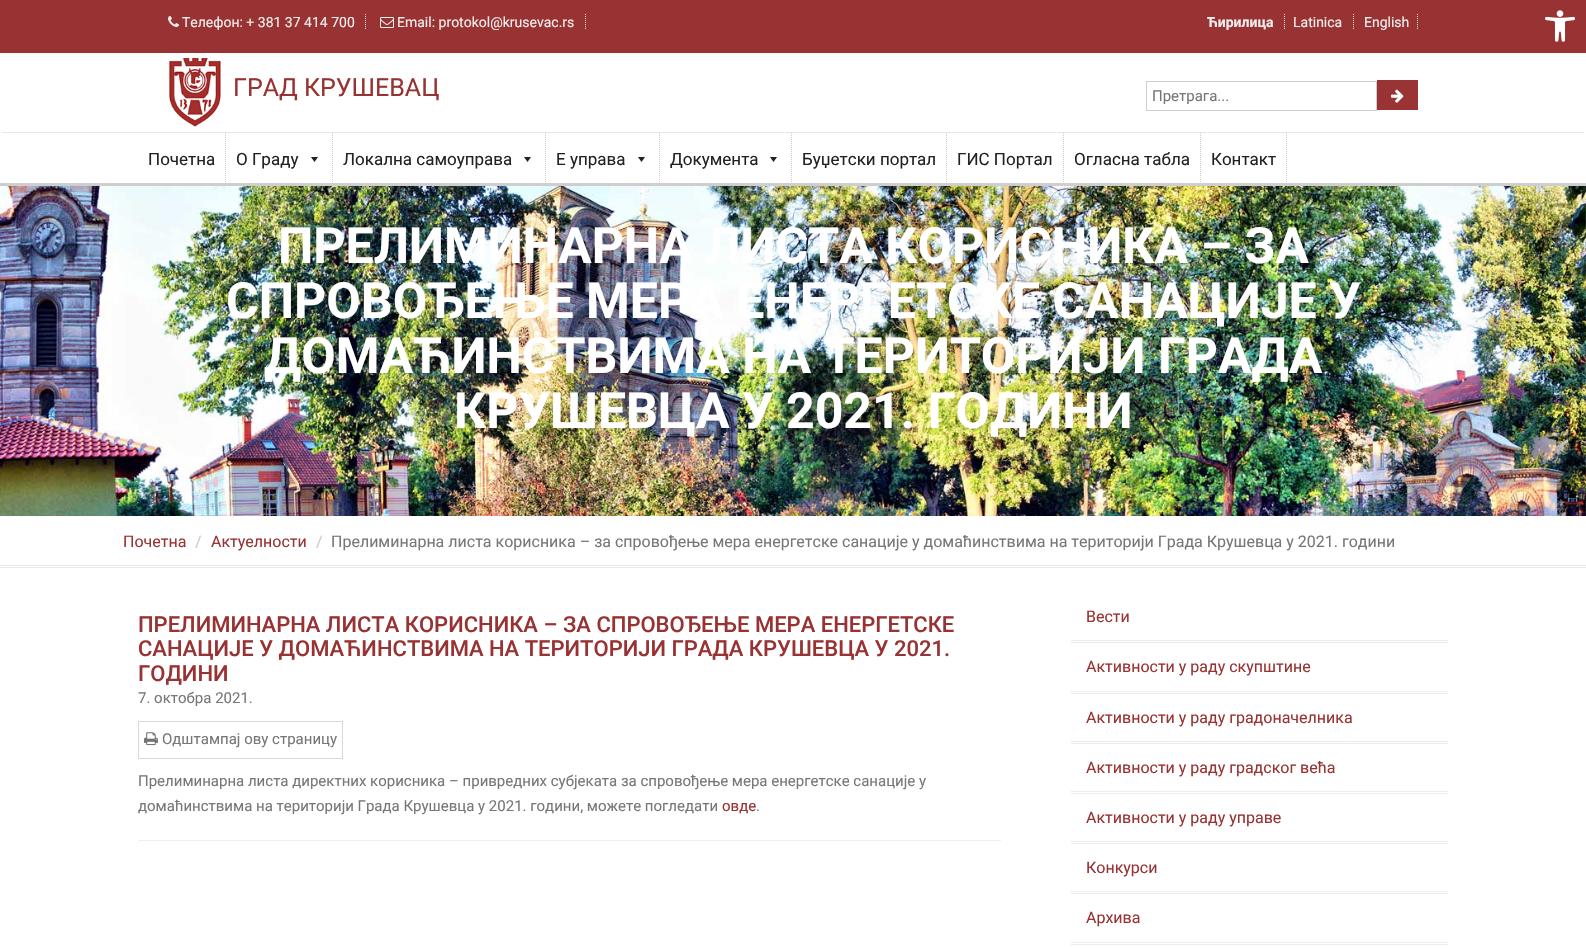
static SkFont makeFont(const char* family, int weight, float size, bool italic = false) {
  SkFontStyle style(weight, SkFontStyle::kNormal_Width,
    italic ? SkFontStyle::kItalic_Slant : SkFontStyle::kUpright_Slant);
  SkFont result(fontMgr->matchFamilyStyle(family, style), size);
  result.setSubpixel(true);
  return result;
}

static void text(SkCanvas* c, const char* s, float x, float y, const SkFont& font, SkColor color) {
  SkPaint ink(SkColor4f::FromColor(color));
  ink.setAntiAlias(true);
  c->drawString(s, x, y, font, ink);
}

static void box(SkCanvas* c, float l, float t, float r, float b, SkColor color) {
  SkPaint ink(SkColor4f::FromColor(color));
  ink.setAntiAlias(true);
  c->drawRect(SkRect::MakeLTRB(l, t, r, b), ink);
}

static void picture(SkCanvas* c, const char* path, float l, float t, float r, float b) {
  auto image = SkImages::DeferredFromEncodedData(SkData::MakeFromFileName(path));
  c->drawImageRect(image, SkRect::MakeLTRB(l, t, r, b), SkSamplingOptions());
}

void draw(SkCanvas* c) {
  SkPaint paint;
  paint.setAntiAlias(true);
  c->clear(0xffffffff);
  box(c, 0, 183, 1586, 186, 0xffcecece);
  box(c, 0, 0, 1586, 53, 0xff993333);
  picture(c, "img_01.png", 168, 16, 179, 27);
  SkFont face1 = makeFont("Roboto", 400, 14);
  text(c, "Телефон: + 381 37 414 700", 182, 27, face1, 0xffeeeeee);
  paint.setStyle(SkPaint::kStroke_Style);
  paint.setStrokeWidth(1);
  paint.setColor(0xffe8e8e8);
  paint.setPathEffect(SkDashPathEffect::Make({{1, 1}}, 0));
  c->drawPath(SkPathBuilder().moveTo(365.5f, 14).lineTo(365.5f, 30).detach(), paint);
  paint.setPathEffect(nullptr);
  picture(c, "img_02.png", 380, 17, 394, 28);
  text(c, "Email: protokol@krusevac.rs", 397, 27, face1, 0xffeeeeee);
  paint.setPathEffect(SkDashPathEffect::Make({{1, 1}}, 0));
  c->drawPath(SkPathBuilder().moveTo(585.5f, 14).lineTo(585.5f, 30).detach(), paint);
  paint.setPathEffect(nullptr);
  SkFont face2 = makeFont("Roboto", 700, 14);
  text(c, "Ћирилица", 1207, 27, face2, 0xffeeeeee);
  paint.setPathEffect(SkDashPathEffect::Make({{1, 1}}, 0));
  c->drawPath(SkPathBuilder().moveTo(1284.5f, 14).lineTo(1284.5f, 30).detach(), paint);
  paint.setPathEffect(nullptr);
  text(c, "Latinica", 1293, 27, face1, 0xffeeeeee);
  paint.setPathEffect(SkDashPathEffect::Make({{1, 1}}, 0));
  c->drawPath(SkPathBuilder().moveTo(1353.5f, 14).lineTo(1353.5f, 30).detach(), paint);
  paint.setPathEffect(nullptr);
  text(c, "English", 1364, 27, face1, 0xffeeeeee);
  paint.setPathEffect(SkDashPathEffect::Make({{1, 1}}, 0));
  c->drawPath(SkPathBuilder().moveTo(1417.5f, 14).lineTo(1417.5f, 30).detach(), paint);
  paint.setPathEffect(nullptr);
  picture(c, "img_03.png", 168, 58, 221, 127);
  SkFont face3 = makeFont("Roboto", 400, 25);
  text(c, "ГРАД КРУШЕВАЦ", 233, 96, face3, 0xff993333);
  paint.setColor(0xffcecece);
  c->drawRect(SkRect::MakeLTRB(1146.5f, 81.5f, 1376.5f, 110.5f), paint);
  SkFont face4 = makeFont("Roboto", 400, 15);
  text(c, "Претрага...", 1152, 101, face4, 0xff777777);
  box(c, 1377, 80, 1418, 110, 0xff9a3334);
  picture(c, "img_04.png", 1391, 89, 1404, 103);
  box(c, 2, 132, 1584, 133, 0xffe8e8e8);
  paint.setPathEffect(SkDashPathEffect::Make({{1, 1}}, 0));
  c->drawPath(SkPathBuilder().moveTo(225.5f, 133).lineTo(225.5f, 183).detach(), paint);
  paint.setPathEffect(nullptr);
  SkFont face5 = makeFont("Roboto", 400, 17);
  text(c, "Почетна", 148, 165, face5, 0xff222222);
  paint.setPathEffect(SkDashPathEffect::Make({{1, 1}}, 0));
  c->drawPath(SkPathBuilder().moveTo(332.5f, 133).lineTo(332.5f, 183).detach(), paint);
  paint.setPathEffect(nullptr);
  text(c, "О Граду", 236, 165, face5, 0xff222222);
  paint.setStyle(SkPaint::kFill_Style);
  paint.setColor(0xff222222);
  c->drawPath(SkPathBuilder().moveTo(318, 157).lineTo(314.5f, 162).lineTo(311, 157).close().detach(), paint);
  paint.setStyle(SkPaint::kStroke_Style);
  paint.setColor(0xffcecece);
  paint.setPathEffect(SkDashPathEffect::Make({{1, 1}}, 0));
  c->drawPath(SkPathBuilder().moveTo(545.5f, 133).lineTo(545.5f, 183).detach(), paint);
  paint.setPathEffect(nullptr);
  text(c, "Локална самоуправа", 343, 165, face5, 0xff222222);
  paint.setStyle(SkPaint::kFill_Style);
  paint.setColor(0xff222222);
  c->drawPath(SkPathBuilder().moveTo(531, 157).lineTo(527.5f, 162).lineTo(524, 157).close().detach(), paint);
  paint.setStyle(SkPaint::kStroke_Style);
  paint.setColor(0xffcecece);
  paint.setPathEffect(SkDashPathEffect::Make({{1, 1}}, 0));
  c->drawPath(SkPathBuilder().moveTo(659.5f, 133).lineTo(659.5f, 183).detach(), paint);
  paint.setPathEffect(nullptr);
  text(c, "Е управа", 556, 165, face5, 0xff222222);
  paint.setStyle(SkPaint::kFill_Style);
  paint.setColor(0xff222222);
  c->drawPath(SkPathBuilder().moveTo(645, 157).lineTo(641.5f, 162).lineTo(638, 157).close().detach(), paint);
  paint.setStyle(SkPaint::kStroke_Style);
  paint.setColor(0xffcecece);
  paint.setPathEffect(SkDashPathEffect::Make({{1, 1}}, 0));
  c->drawPath(SkPathBuilder().moveTo(791.5f, 133).lineTo(791.5f, 183).detach(), paint);
  paint.setPathEffect(nullptr);
  text(c, "Документа", 670, 165, face5, 0xff222222);
  paint.setStyle(SkPaint::kFill_Style);
  paint.setColor(0xff222222);
  c->drawPath(SkPathBuilder().moveTo(777, 157).lineTo(773.5f, 162).lineTo(770, 157).close().detach(), paint);
  paint.setStyle(SkPaint::kStroke_Style);
  paint.setColor(0xffcecece);
  paint.setPathEffect(SkDashPathEffect::Make({{1, 1}}, 0));
  c->drawPath(SkPathBuilder().moveTo(946.5f, 133).lineTo(946.5f, 183).detach(), paint);
  paint.setPathEffect(nullptr);
  text(c, "Буџетски портал", 802, 165, face5, 0xff222222);
  paint.setPathEffect(SkDashPathEffect::Make({{1, 1}}, 0));
  c->drawPath(SkPathBuilder().moveTo(1063.5f, 133).lineTo(1063.5f, 183).detach(), paint);
  paint.setPathEffect(nullptr);
  text(c, "ГИС Портал", 957, 165, face5, 0xff222222);
  paint.setPathEffect(SkDashPathEffect::Make({{1, 1}}, 0));
  c->drawPath(SkPathBuilder().moveTo(1200.5f, 133).lineTo(1200.5f, 183).detach(), paint);
  paint.setPathEffect(nullptr);
  text(c, "Огласна табла", 1074, 165, face5, 0xff222222);
  paint.setPathEffect(SkDashPathEffect::Make({{1, 1}}, 0));
  c->drawPath(SkPathBuilder().moveTo(1286.5f, 133).lineTo(1286.5f, 183).detach(), paint);
  paint.setPathEffect(nullptr);
  text(c, "Контакт", 1211, 165, face5, 0xff222222);
  picture(c, "img_05.png", 1545, 10, 1575, 42);
  picture(c, "img_06.png", 0, 186, 1586, 516);
  SkFont face6 = makeFont("Roboto", 700, 50);
  text(c, "ПРЕЛИМИНАРНА ЛИСТА КОРИСНИКА – ЗА", 278, 263, face6, 0xffffffff);
  text(c, "СПРОВОЂЕЊЕ МЕРА ЕНЕРГЕТСКЕ САНАЦИЈЕ У", 226, 318, face6, 0xffffffff);
  text(c, "ДОМАЋИНСТВИМА НА ТЕРИТОРИЈИ ГРАДА", 264, 373, face6, 0xffffffff);
  text(c, "КРУШЕВЦА У 2021. ГОДИНИ", 454, 428, face6, 0xffffffff);
  box(c, 0, 565, 1586, 566, 0xffeaeaea);
  box(c, 0, 567, 1586, 568, 0xffeaeaea);
  SkFont face7 = makeFont("Roboto", 400, 16);
  text(c, "Почетна", 123, 547, face7, 0xff993333);
  text(c, "/", 195, 547, face7, 0xffcccccc);
  text(c, "Актуeлности", 211, 547, face7, 0xff993333);
  text(c, "/", 316, 547, face7, 0xffcccccc);
  text(c, "Прелиминарна листа корисника – за спровођење мера енергетске санације у домаћинствима на територији Града Крушевца у 2021. години", 331, 547, face7, 0xff777777);
  SkFont face8 = makeFont("Roboto", 500, 22);
  text(c, "ПРЕЛИМИНАРНА ЛИСТА КОРИСНИКА – ЗА СПРОВОЂЕЊЕ МЕРА ЕНЕРГЕТСКЕ", 138, 632, face8, 0xff993333);
  text(c, "САНАЦИЈЕ У ДОМАЋИНСТВИМА НА ТЕРИТОРИЈИ ГРАДА КРУШЕВЦА У 2021.", 138, 656, face8, 0xff993333);
  text(c, "ГОДИНИ", 138, 681, face8, 0xff993333);
  text(c, "7. октобра 2021.", 138, 703, face4, 0xff777777);
  paint.setColor(0xffd9d9d9);
  c->drawRect(SkRect::MakeLTRB(138.5f, 721.5f, 342.5f, 758.5f), paint);
  picture(c, "img_07.png", 144, 732, 158, 746);
  text(c, "Одштампај ову страницу", 162, 744, face4, 0xff777777);
  text(c, "Прелиминарна листа директних корисника – привредних субјеката за спровођење мера енергетске санације у", 138, 786, face4, 0xff777777);
  text(c, "домаћинствима на територији Града Крушевца у 2021. години, можете погледати", 138, 811, face4, 0xff777777);
  text(c, "овде", 722, 811, face4, 0xff993333);
  text(c, ".", 756, 811, face4, 0xff777777);
  box(c, 138, 840, 1001, 841, 0xffeeeeee);
  box(c, 1071, 640, 1448, 641, 0xffececec);
  box(c, 1071, 642, 1448, 643, 0xffececec);
  text(c, "Вести", 1086, 622, face7, 0xff993333);
  box(c, 1071, 691, 1448, 692, 0xffececec);
  box(c, 1071, 693, 1448, 694, 0xffececec);
  text(c, "Активности у раду скупштине", 1086, 672, face7, 0xff993333);
  box(c, 1071, 741, 1448, 742, 0xffececec);
  box(c, 1071, 743, 1448, 744, 0xffececec);
  text(c, "Активности у раду градоначелника", 1086, 723, face7, 0xff993333);
  box(c, 1071, 791, 1448, 792, 0xffececec);
  box(c, 1071, 793, 1448, 794, 0xffececec);
  text(c, "Активности у раду градског већа", 1086, 773, face7, 0xff993333);
  box(c, 1071, 841, 1448, 842, 0xffececec);
  box(c, 1071, 843, 1448, 844, 0xffececec);
  text(c, "Активности у раду управе", 1086, 823, face7, 0xff993333);
  box(c, 1071, 891, 1448, 892, 0xffececec);
  box(c, 1071, 893, 1448, 894, 0xffececec);
  text(c, "Конкурси", 1086, 873, face7, 0xff993333);
  box(c, 1071, 942, 1448, 943, 0xffececec);
  box(c, 1071, 944, 1448, 945, 0xffececec);
  text(c, "Архива", 1086, 923, face7, 0xff993333);
}
